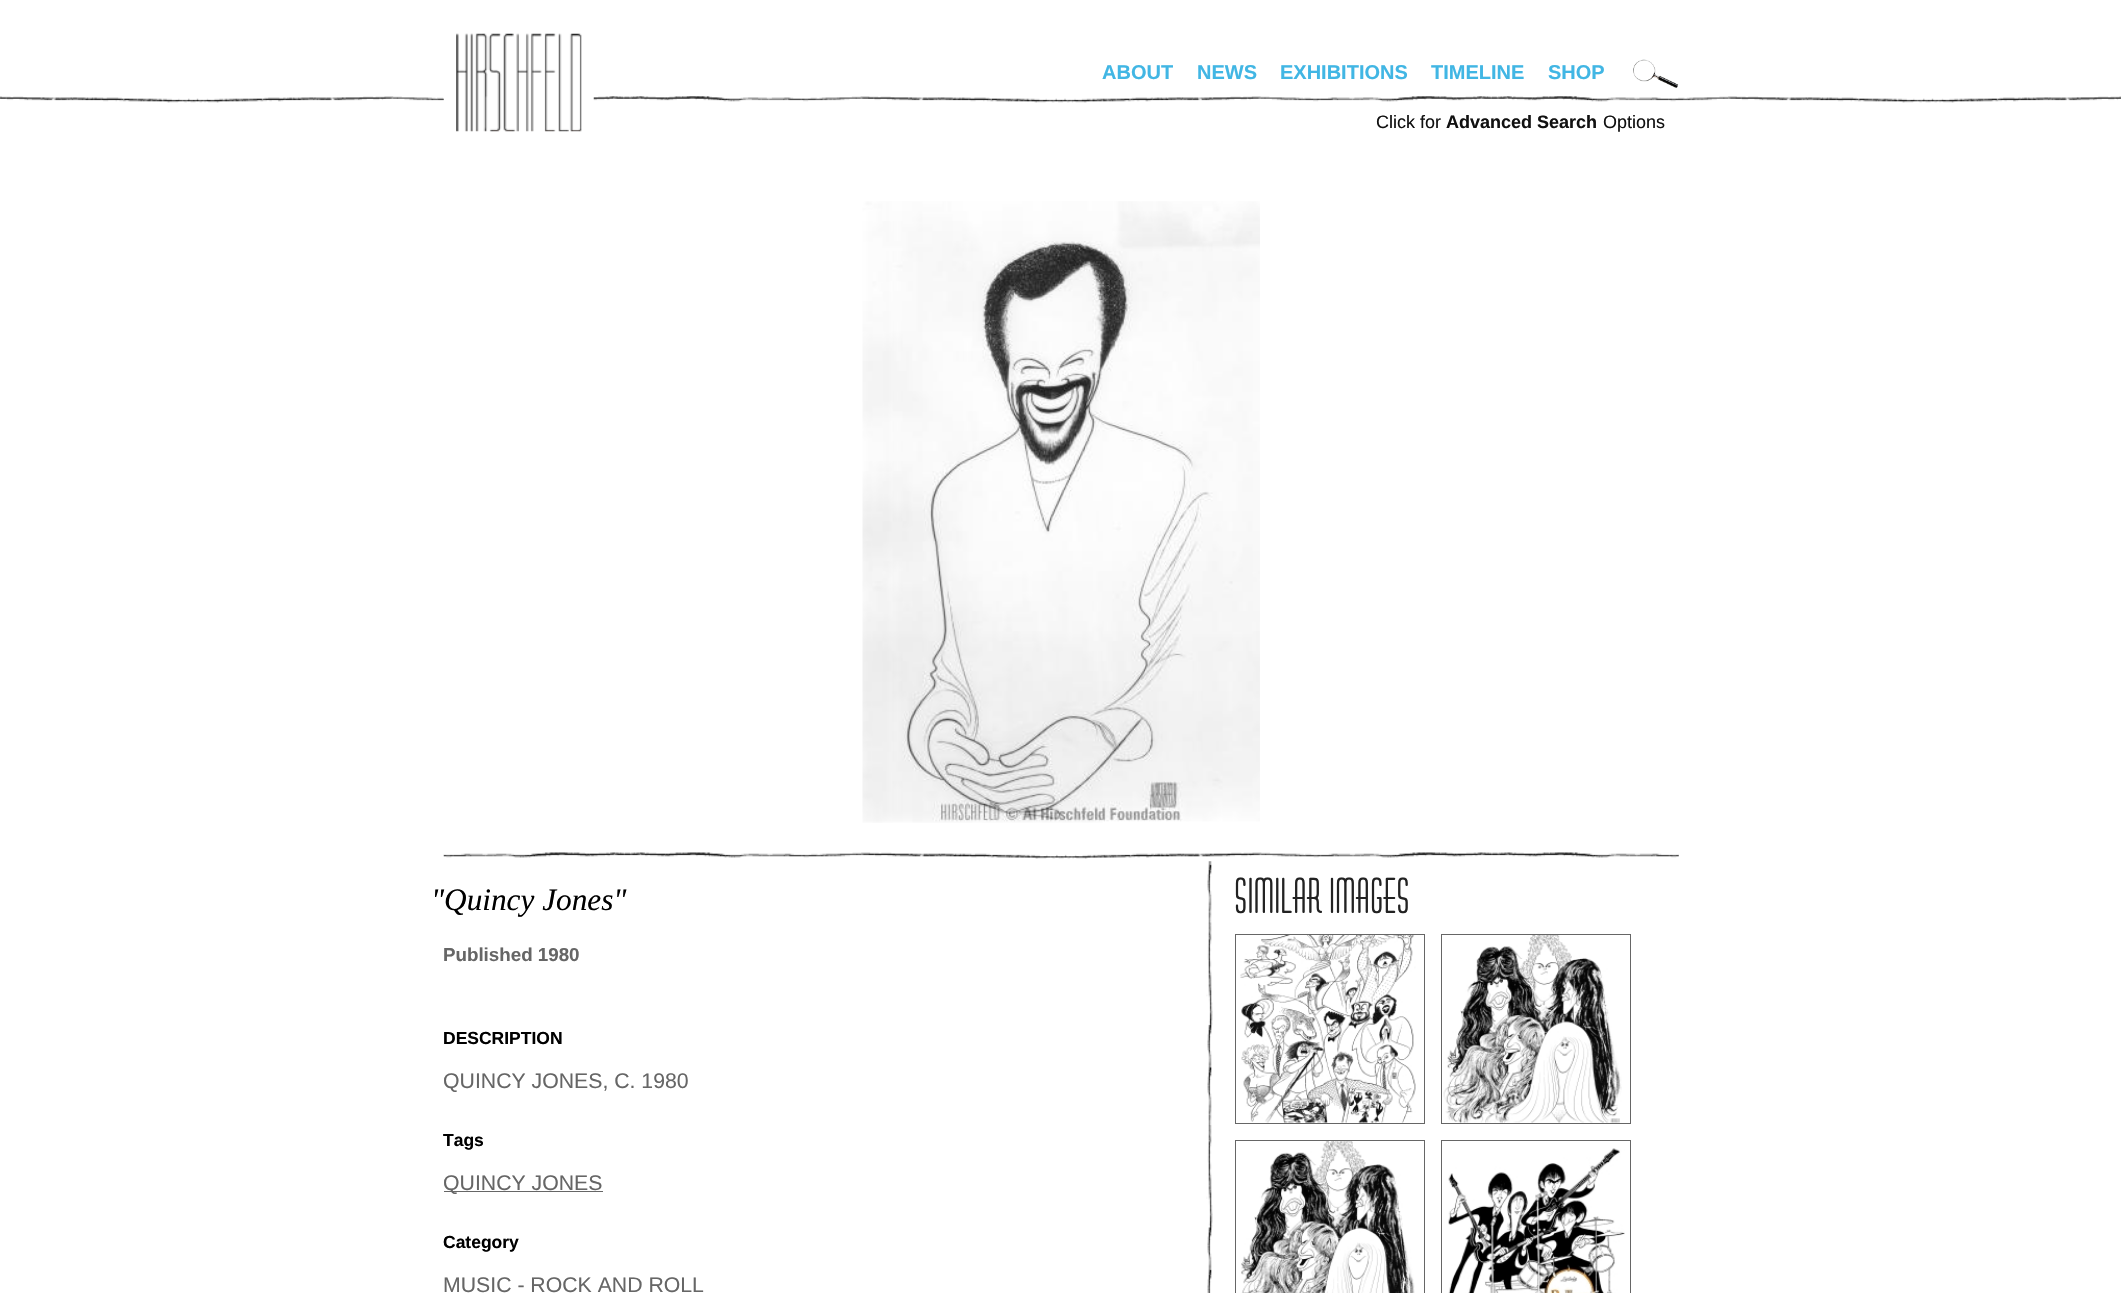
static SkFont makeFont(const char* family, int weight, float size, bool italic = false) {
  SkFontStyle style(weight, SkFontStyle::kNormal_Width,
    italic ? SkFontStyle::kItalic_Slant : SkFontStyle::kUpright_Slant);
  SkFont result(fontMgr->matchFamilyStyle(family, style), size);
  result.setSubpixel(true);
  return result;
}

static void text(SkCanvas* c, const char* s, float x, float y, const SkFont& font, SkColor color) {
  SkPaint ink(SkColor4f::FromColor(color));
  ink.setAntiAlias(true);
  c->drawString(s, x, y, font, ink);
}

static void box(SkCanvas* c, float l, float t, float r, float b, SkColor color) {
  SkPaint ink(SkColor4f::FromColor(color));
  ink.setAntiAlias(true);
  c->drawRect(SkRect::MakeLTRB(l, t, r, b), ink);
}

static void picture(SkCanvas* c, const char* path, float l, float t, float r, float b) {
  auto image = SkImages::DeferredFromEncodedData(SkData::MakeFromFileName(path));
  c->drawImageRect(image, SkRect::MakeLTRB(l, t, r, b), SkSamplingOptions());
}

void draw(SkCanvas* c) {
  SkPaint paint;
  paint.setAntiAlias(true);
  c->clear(0xffffffff);
  picture(c, "img_01.png", 0, 96, 2121, 103);
  picture(c, "img_02.png", 443, 33, 594, 132);
  SkFont face1 = makeFont("Liberation Sans", 700, 20);
  text(c, "ABOUT", 1102, 79, face1, 0xff41b6e4);
  text(c, "NEWS", 1197, 79, face1, 0xff41b6e4);
  text(c, "EXHIBITIONS", 1280, 79, face1, 0xff41b6e4);
  text(c, "TIMELINE", 1431, 79, face1, 0xff41b6e4);
  text(c, "SHOP", 1548, 79, face1, 0xff41b6e4);
  picture(c, "img_03.png", 1633, 59, 1679, 88);
  SkFont face2 = makeFont("Liberation Sans", 400, 18);
  text(c, "Click for", 1376, 128, face2, 0xff111111);
  SkFont face3 = makeFont("Liberation Sans", 700, 18);
  text(c, "Advanced Search", 1446, 128, face3, 0xff111111);
  text(c, "Options", 1603, 128, face2, 0xff111111);
  picture(c, "img_04.png", 443, 852, 1679, 859);
  picture(c, "img_05.png", 862, 201, 1260, 823);
  picture(c, "img_06.png", 1206, 861, 1213, 1293);
  SkFont face4 = makeFont("Liberation Serif", 400, 31.25f, true);
  text(c, "\"Quincy Jones\"", 431, 910, face4, 0xff000000);
  SkFont face5 = makeFont("Liberation Sans", 700, 18.75f);
  text(c, "Published 1980", 443, 961, face5, 0xff666666);
  SkFont face6 = makeFont("Liberation Sans", 700, 17.5f);
  text(c, "DESCRIPTION", 443, 1044, face6, 0xff000000);
  SkFont face7 = makeFont("Liberation Sans", 400, 21.25f);
  text(c, "QUINCY JONES, C. 1980", 443, 1088, face7, 0xff666666);
  text(c, "Tags", 443, 1146, face6, 0xff000000);
  box(c, 444, 1191, 603, 1192, 0xff666666);
  text(c, "QUINCY JONES", 443, 1190, face7, 0xff666666);
  text(c, "Category", 443, 1248, face6, 0xff000000);
  text(c, "MUSIC - ROCK AND ROLL", 443, 1292, face7, 0xff666666);
  SkFont face8 = makeFont("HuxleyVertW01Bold", 700, 49);
  text(c, "SIMILAR IMAGES", 1234, 913, face8, 0xff222222);
  paint.setStyle(SkPaint::kStroke_Style);
  paint.setStrokeWidth(1);
  paint.setColor(0xff666666);
  c->drawRect(SkRect::MakeLTRB(1235.5f, 934.5f, 1424.5f, 1123.5f), paint);
  picture(c, "img_07.png", 1240, 935, 1416, 1123);
  c->drawRect(SkRect::MakeLTRB(1441.5f, 934.5f, 1630.5f, 1123.5f), paint);
  picture(c, "img_08.png", 1443, 935, 1622, 1123);
  c->drawRect(SkRect::MakeLTRB(1235.5f, 1140.5f, 1424.5f, 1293.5f), paint);
  picture(c, "img_09.png", 1241, 1141, 1415, 1293);
  c->drawRect(SkRect::MakeLTRB(1441.5f, 1140.5f, 1630.5f, 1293.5f), paint);
  picture(c, "img_10.png", 1448, 1148, 1625, 1293);
}
